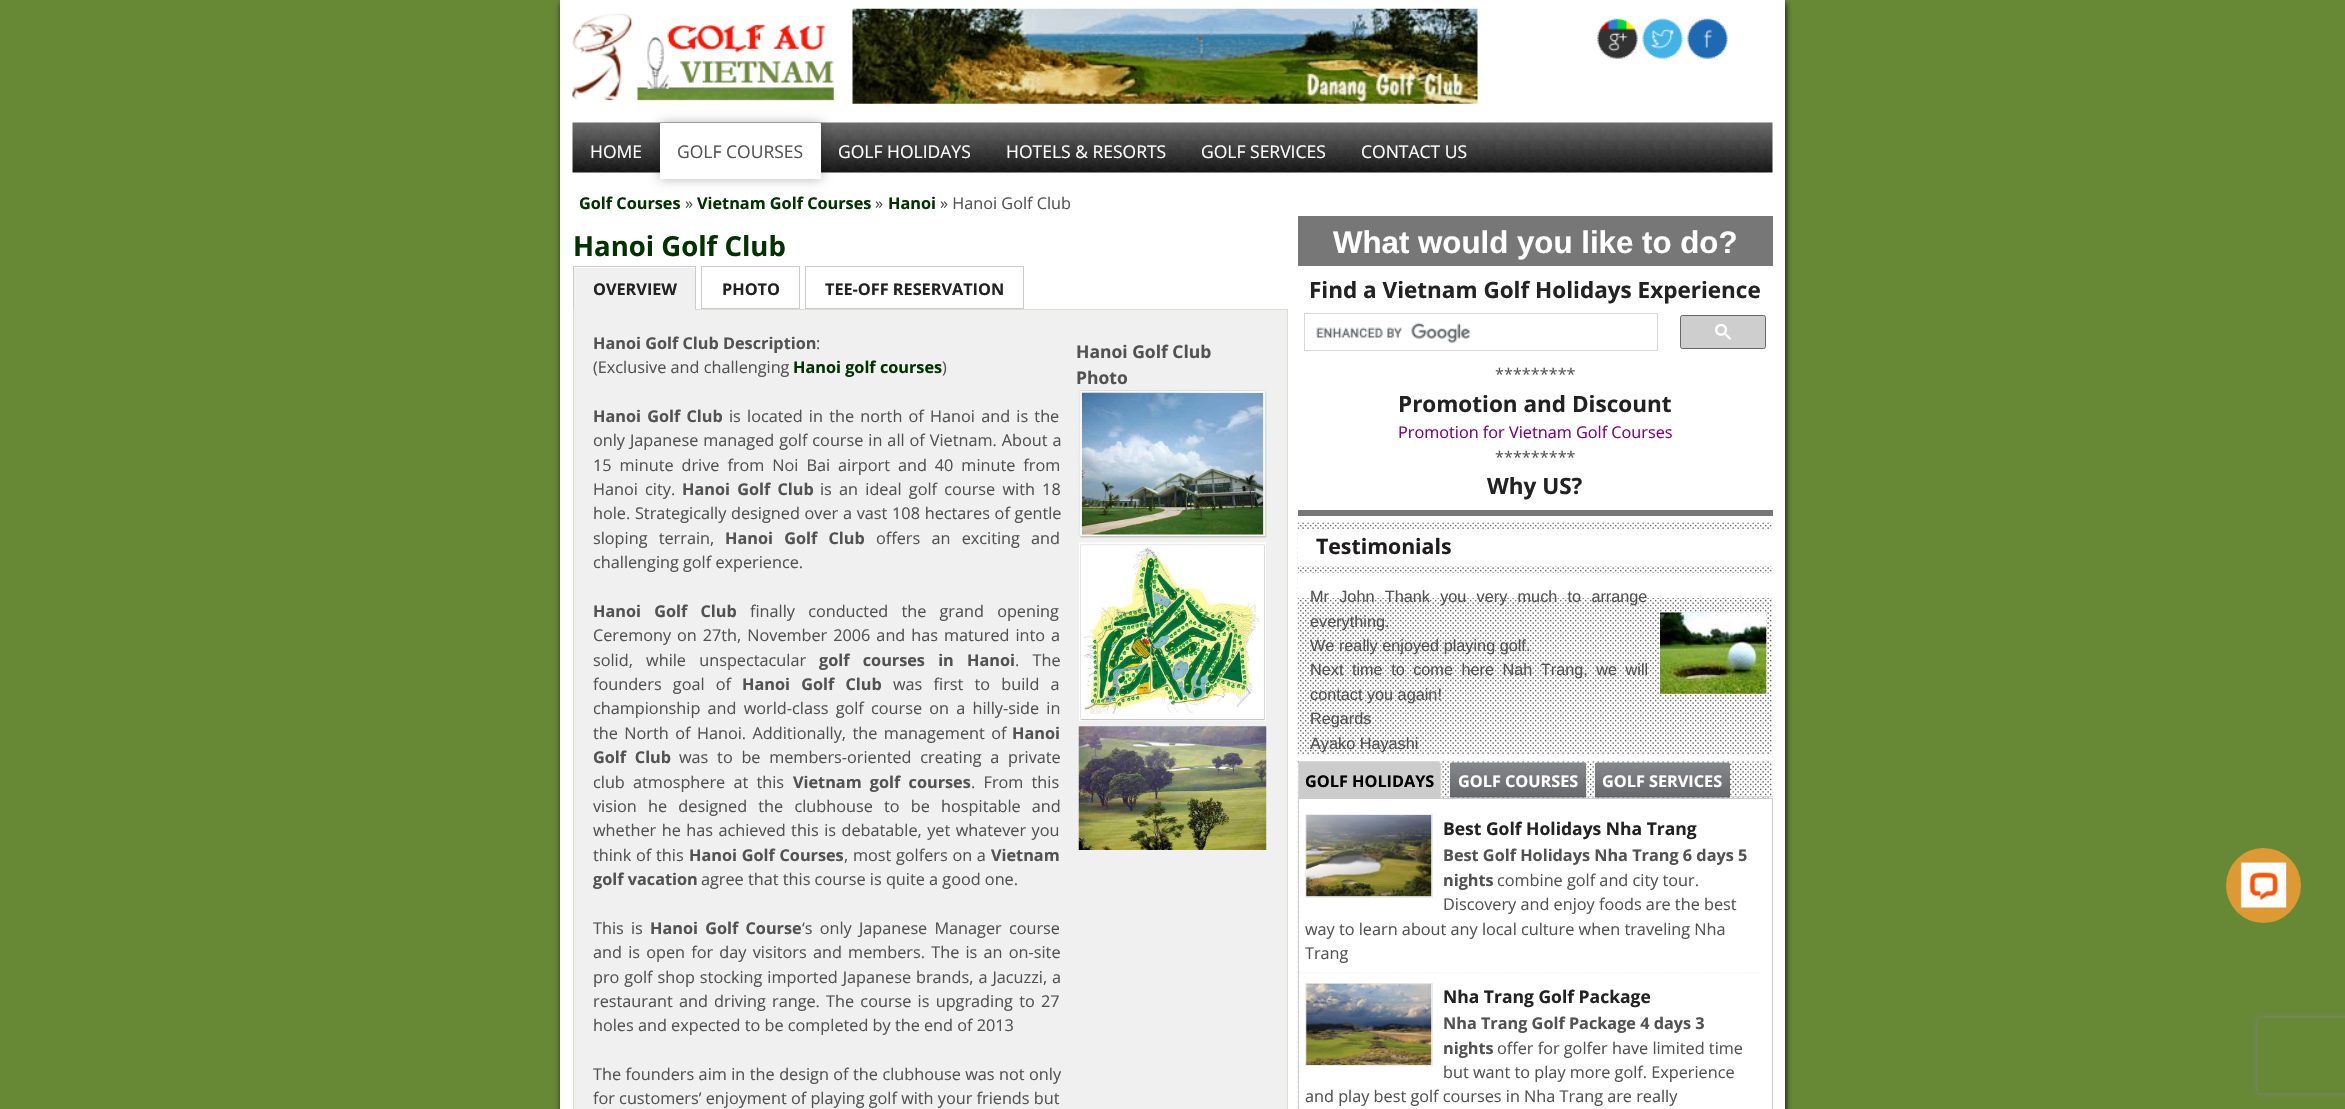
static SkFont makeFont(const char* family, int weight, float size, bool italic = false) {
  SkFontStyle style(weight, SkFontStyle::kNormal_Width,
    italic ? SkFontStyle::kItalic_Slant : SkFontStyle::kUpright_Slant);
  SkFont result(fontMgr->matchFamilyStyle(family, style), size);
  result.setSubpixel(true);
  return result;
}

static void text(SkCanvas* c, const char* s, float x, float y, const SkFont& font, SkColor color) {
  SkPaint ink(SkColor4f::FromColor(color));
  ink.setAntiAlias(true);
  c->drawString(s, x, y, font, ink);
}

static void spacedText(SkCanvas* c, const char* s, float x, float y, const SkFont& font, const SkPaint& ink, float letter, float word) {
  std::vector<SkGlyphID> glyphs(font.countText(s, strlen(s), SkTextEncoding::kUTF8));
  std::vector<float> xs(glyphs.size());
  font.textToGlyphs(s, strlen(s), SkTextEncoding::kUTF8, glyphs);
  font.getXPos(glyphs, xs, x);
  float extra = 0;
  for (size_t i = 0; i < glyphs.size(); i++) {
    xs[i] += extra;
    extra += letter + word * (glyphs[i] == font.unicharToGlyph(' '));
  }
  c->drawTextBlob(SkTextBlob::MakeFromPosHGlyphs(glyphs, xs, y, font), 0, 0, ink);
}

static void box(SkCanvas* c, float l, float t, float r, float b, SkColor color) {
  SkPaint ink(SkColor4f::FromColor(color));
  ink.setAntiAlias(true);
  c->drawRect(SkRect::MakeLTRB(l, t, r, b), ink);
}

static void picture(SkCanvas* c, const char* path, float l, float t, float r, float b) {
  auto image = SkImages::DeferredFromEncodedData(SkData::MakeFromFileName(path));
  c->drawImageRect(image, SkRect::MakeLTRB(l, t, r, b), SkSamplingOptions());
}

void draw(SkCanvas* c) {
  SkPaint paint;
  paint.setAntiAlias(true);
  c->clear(0xff678936);
  paint.setColor(0xff111111);
  paint.setMaskFilter(SkMaskFilter::MakeBlur(kNormal_SkBlurStyle, 3));
  c->drawRoundRect(SkRect::MakeLTRB(561, 1, 1786, 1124), 6, 6, paint);
  paint.setMaskFilter(nullptr);
  box(c, 560, 0, 1785, 1109, 0xffffffff);
  picture(c, "img_01.png", 572, 13, 834, 101);
  picture(c, "img_02.png", 852, 8, 1478, 104);
  picture(c, "img_03.png", 1597, 18, 1638, 59);
  picture(c, "img_04.png", 1642, 18, 1683, 59);
  picture(c, "img_05.png", 1687, 18, 1728, 59);
  picture(c, "img_06.png", 572, 122, 1773, 173);
  SkFont face1 = makeFont("Open Sans", 400, 17.5f);
  text(c, "HOME", 590, 158, face1, 0xffffffff);
  paint.setColor(0x4d000000);
  paint.setMaskFilter(SkMaskFilter::MakeBlur(kNormal_SkBlurStyle, 6));
  c->drawRoundRect(SkRect::MakeLTRB(660, 123, 821, 179), 1, 1, paint);
  paint.setMaskFilter(nullptr);
  paint.setColor(0xffffffff);
  c->drawPath(SkPathBuilder().moveTo(661, 123).lineTo(820, 123).cubicTo(820.5f, 123, 821, 123.5f, 821, 124).lineTo(821, 179).lineTo(660, 179).lineTo(660, 124).cubicTo(660, 123.5f, 660.5f, 123, 661, 123).close().detach(), paint);
  text(c, "GOLF COURSES", 677, 158, face1, 0xff525252);
  text(c, "GOLF HOLIDAYS", 838, 158, face1, 0xffffffff);
  text(c, "HOTELS & RESORTS", 1006, 158, face1, 0xffffffff);
  text(c, "GOLF SERVICES", 1201, 158, face1, 0xffffffff);
  text(c, "CONTACT US", 1361, 158, face1, 0xffffffff);
  SkFont face2 = makeFont("Open Sans", 700, 16.25f);
  text(c, "Golf Courses", 579, 209, face2, 0xff003300);
  SkFont face3 = makeFont("Open Sans", 400, 16.25f);
  text(c, "»", 685, 209, face3, 0xff525252);
  text(c, "Vietnam Golf Courses", 697, 209, face2, 0xff003300);
  text(c, "»", 875, 209, face3, 0xff525252);
  text(c, "Hanoi", 888, 209, face2, 0xff003300);
  text(c, "» Hanoi Golf Club", 940, 209, face3, 0xff525252);
  SkFont face4 = makeFont("Open Sans", 700, 27.5f);
  text(c, "Hanoi Golf Club", 573, 256, face4, 0xff003300);
  paint.setStyle(SkPaint::kStroke_Style);
  paint.setStrokeWidth(1);
  paint.setColor(0xffcccccc);
  c->drawRect(SkRect::MakeLTRB(573.5f, 266.5f, 695.5f, 308.5f), paint);
  paint.setStyle(SkPaint::kFill_Style);
  paint.setColor(0xfff0f0f0);
  c->drawRect(SkRect::MakeLTRB(573.5f, 309.5f, 1287.5f, 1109.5f), paint);
  paint.setStyle(SkPaint::kStroke_Style);
  paint.setColor(0xffdedbd1);
  c->drawRect(SkRect::MakeLTRB(573.5f, 309.5f, 1287.5f, 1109.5f), paint);
  box(c, 574, 268, 695, 310, 0xfff0f0f0);
  text(c, "OVERVIEW", 593, 295, face2, 0xff222222);
  paint.setColor(0xffcccccc);
  c->drawRect(SkRect::MakeLTRB(701.5f, 266.5f, 799.5f, 308.5f), paint);
  text(c, "PHOTO", 722, 295, face2, 0xff222222);
  c->drawRect(SkRect::MakeLTRB(805.5f, 266.5f, 1023.5f, 308.5f), paint);
  text(c, "TEE-OFF RESERVATION", 825, 295, face2, 0xff222222);
  text(c, "Hanoi Golf Club Description", 593, 349, face2, 0xff525252);
  text(c, ":", 816, 349, face3, 0xff525252);
  text(c, "(Exclusive and challenging", 593, 373, face3, 0xff525252);
  text(c, "Hanoi golf courses", 793, 373, face2, 0xff003300);
  text(c, ")", 942, 373, face3, 0xff525252);
  paint.setStyle(SkPaint::kFill_Style);
  paint.setColor(0xff525252);
  spacedText(c, "Hanoi Golf Club", 593, 422, face2, paint, 0, 2);
  spacedText(c, "is located in the north of Hanoi and is the", 729, 422, face3, paint, 0, 2);
  spacedText(c, "only Japanese managed golf course in all of Vietnam. About a", 593, 446, face3, paint, 0, 0.75f);
  spacedText(c, "15 minute drive from Noi Bai airport and 40 minute from", 593, 471, face3, paint, 0, 3.75f);
  spacedText(c, "Hanoi city.", 593, 495, face3, paint, 0, 3);
  spacedText(c, "Hanoi Golf Club", 682, 495, face2, paint, 0, 3);
  spacedText(c, "is an ideal golf course with 18", 820, 495, face3, paint, 0, 3);
  spacedText(c, "hole. Strategically designed over a vast 108 hectares of gentle", 593, 519, face3, paint, 0, 0.5f);
  spacedText(c, "sloping terrain,", 593, 544, face3, paint, 0, 7);
  spacedText(c, "Hanoi Golf Club", 725, 544, face2, paint, 0, 7);
  spacedText(c, "offers an exciting and", 876, 544, face3, paint, 0, 7);
  text(c, "challenging golf experience.", 593, 568, face3, 0xff525252);
  spacedText(c, "Hanoi Golf Club", 593, 617, face2, paint, 0, 9);
  spacedText(c, "finally conducted the grand opening", 750, 617, face3, paint, 0, 9);
  spacedText(c, "Ceremony on 27th, November 2006 and has matured into a", 593, 641, face3, paint, 0, 1.75f);
  spacedText(c, "solid, while unspectacular", 593, 666, face3, paint, 0, 9);
  spacedText(c, "golf courses in Hanoi", 819, 666, face2, paint, 0, 9);
  spacedText(c, ". The", 1015, 666, face3, paint, 0, 9);
  spacedText(c, "founders goal of", 593, 690, face3, paint, 0, 7);
  spacedText(c, "Hanoi Golf Club", 742, 690, face2, paint, 0, 7);
  spacedText(c, "was first to build a", 893, 690, face3, paint, 0, 7);
  spacedText(c, "championship and world-class golf course on a hilly-side in", 593, 714, face3, paint, 0, 3);
  spacedText(c, "the North of Hanoi. Additionally, the management of", 593, 739, face3, paint, 0, 2.25f);
  text(c, "Hanoi", 1012, 739, face2, 0xff525252);
  spacedText(c, "Golf Club", 593, 763, face2, paint, 0, 4.5f);
  spacedText(c, "was to be members-oriented creating a private", 679, 763, face3, paint, 0, 4.5f);
  spacedText(c, "club atmosphere at this", 593, 788, face3, paint, 0, 4);
  spacedText(c, "Vietnam golf courses", 793, 788, face2, paint, 0, 4);
  spacedText(c, ". From this", 971, 788, face3, paint, 0, 4);
  spacedText(c, "vision he designed the clubhouse to be hospitable and", 593, 812, face3, paint, 0, 7);
  spacedText(c, "whether he has achieved this is debatable, yet whatever you", 593, 836, face3, paint, 0, 1.25f);
  spacedText(c, "think of this", 593, 861, face3, paint, 0, 0.5f);
  spacedText(c, "Hanoi Golf Courses", 689, 861, face2, paint, 0, 0.5f);
  spacedText(c, ", most golfers on a", 844, 861, face3, paint, 0, 0.5f);
  text(c, "Vietnam", 991, 861, face2, 0xff525252);
  text(c, "golf vacation", 593, 885, face2, 0xff525252);
  text(c, "agree that this course is quite a good one.", 701, 885, face3, 0xff525252);
  spacedText(c, "This is", 593, 934, face3, paint, 0, 3);
  spacedText(c, "Hanoi Golf Course", 650, 934, face2, paint, 0, 3);
  spacedText(c, "‘s only Japanese Manager course", 802, 934, face3, paint, 0, 3);
  spacedText(c, "and is open for day visitors and members. The is an on-site", 593, 958, face3, paint, 0, 2);
  spacedText(c, "pro golf shop stocking imported Japanese brands, a Jacuzzi, a", 593, 983, face3, paint, 0, 0.75f);
  spacedText(c, "restaurant and driving range. The course is upgrading to 27", 593, 1007, face3, paint, 0, 2);
  text(c, "holes and expected to be completed by the end of 2013", 593, 1031, face3, 0xff525252);
  spacedText(c, "The founders aim in the design of the clubhouse was not only", 593, 1080, face3, paint, 0, 0.25f);
  text(c, "for customers’ enjoyment of playing golf with your friends but", 593, 1104, face3, 0xff525252);
  SkFont face5 = makeFont("Open Sans", 700, 17.5f);
  text(c, "Hanoi Golf Club", 1076, 358, face5, 0xff525252);
  text(c, "Photo", 1076, 384, face5, 0xff525252);
  picture(c, "img_07.png", 1078, 390, 1267, 538);
  picture(c, "img_08.png", 1079, 542, 1266, 721);
  picture(c, "img_09.png", 1078, 726, 1267, 850);
  box(c, 1298, 216, 1773, 516, 0xff777777);
  SkFont face6 = makeFont("Liberation Sans", 700, 31.25f);
  text(c, "What would you like to do?", 1333, 253, face6, 0xffffffff);
  box(c, 1298, 266, 1773, 510, 0xffffffff);
  SkFont face7 = makeFont("Open Sans", 700, 22.5f);
  text(c, "Find a Vietnam Golf Holidays Experience", 1309, 298, face7, 0xff222222);
  paint.setStyle(SkPaint::kStroke_Style);
  paint.setColor(0xffd9d9d9);
  c->drawRect(SkRect::MakeLTRB(1304.5f, 313.5f, 1657.5f, 350.5f), paint);
  picture(c, "img_10.png", 1316, 323, 1470, 343);
  paint.setStyle(SkPaint::kFill_Style);
  paint.setColor(0xffcecece);
  c->drawRoundRect(SkRect::MakeLTRB(1680.5f, 315.5f, 1765.5f, 348.5f), 2, 2, paint);
  paint.setStyle(SkPaint::kStroke_Style);
  paint.setColor(0xff666666);
  c->drawRoundRect(SkRect::MakeLTRB(1680.5f, 315.5f, 1765.5f, 348.5f), 2, 2, paint);
  picture(c, "img_11.png", 1715, 324, 1731, 340);
  text(c, "*********", 1495, 380, face3, 0xff525252);
  text(c, "Promotion and Discount", 1398, 412, face7, 0xff222222);
  text(c, "Promotion for Vietnam Golf Courses", 1398, 438, face3, 0xff800080);
  text(c, "*********", 1495, 463, face3, 0xff525252);
  text(c, "Why US?", 1487, 494, face7, 0xff222222);
  picture(c, "img_12.png", 1297, 522, 1773, 755);
  box(c, 1298, 529, 1773, 566, 0xffffffff);
  SkFont face8 = makeFont("Open Sans", 700, 21.25f);
  text(c, "Testimonials", 1316, 554, face8, 0xff1f1c1c);
  box(c, 1298, 573, 1773, 598, 0xffffffff);
  SkFont face9 = makeFont("Liberation Sans", 400, 16.25f);
  paint.setStyle(SkPaint::kFill_Style);
  paint.setColor(0xff525252);
  spacedText(c, "Mr John Thank you very much to arrange", 1310, 602, face9, paint, 0, 5.75f);
  text(c, "everything.", 1310, 627, face9, 0xff525252);
  text(c, "We really enjoyed playing golf.", 1310, 651, face9, 0xff525252);
  spacedText(c, "Next time to come here Nah Trang, we will", 1310, 675, face9, paint, 0, 4);
  text(c, "contact you again!", 1310, 700, face9, 0xff525252);
  text(c, "Regards", 1310, 724, face9, 0xff525252);
  text(c, "Ayako Hayashi", 1310, 749, face9, 0xff525252);
  picture(c, "img_13.png", 1660, 612, 1767, 694);
  picture(c, "img_14.png", 1297, 761, 1773, 1109);
  box(c, 1441, 796, 1773, 797, 0xffd7d7d7);
  paint.setColor(0xffffffff);
  c->drawRect(SkRect::MakeLTRB(1298.5f, 798.5f, 1772.5f, 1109.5f), paint);
  paint.setStyle(SkPaint::kStroke_Style);
  paint.setColor(0xffcccccc);
  c->drawRect(SkRect::MakeLTRB(1298.5f, 798.5f, 1772.5f, 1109.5f), paint);
  paint.setStyle(SkPaint::kFill_Style);
  c->drawPath(SkPathBuilder().moveTo(1302, 761).lineTo(1437, 761).cubicTo(1439, 761, 1441, 763, 1441, 765).lineTo(1441, 799).lineTo(1298, 799).lineTo(1298, 765).cubicTo(1298, 763, 1300, 761, 1302, 761).close().detach(), paint);
  paint.setColor(0xffd7d7d7);
  c->drawPath(SkPathBuilder().moveTo(1301, 762).lineTo(1300, 763).lineTo(1299, 762).lineTo(1300, 761).lineTo(1370, 761).lineTo(1439, 761).lineTo(1440, 762).lineTo(1439, 763).lineTo(1438, 762).close().detach(), paint);
  c->drawPath(SkPathBuilder().moveTo(1440, 762).cubicTo(1441, 763, 1441, 764, 1441, 765).lineTo(1441, 798.5f).lineTo(1440, 797.5f).lineTo(1440, 765).lineTo(1439.5f, 763).close().detach(), paint);
  c->drawPath(SkPathBuilder().moveTo(1298, 798).lineTo(1298, 765).cubicTo(1298, 764, 1298, 763, 1298.5f, 762.5f).lineTo(1299.5f, 763.5f).lineTo(1299, 765).lineTo(1299, 797).close().detach(), paint);
  text(c, "GOLF HOLIDAYS", 1305, 787, face2, 0xff000000);
  picture(c, "img_15.png", 1450, 762, 1587, 798);
  text(c, "GOLF COURSES", 1458, 787, face2, 0xffffffff);
  picture(c, "img_16.png", 1595, 762, 1730, 798);
  text(c, "GOLF SERVICES", 1602, 787, face2, 0xffffffff);
  paint.setStyle(SkPaint::kStroke_Style);
  paint.setStrokeWidth(1.2f);
  paint.setColor(0xffefefef);
  paint.setPathEffect(SkDashPathEffect::Make({{1.25f, 1.25f}}, 0));
  c->drawPath(SkPathBuilder().moveTo(1299, 973).lineTo(1761, 973).detach(), paint);
  paint.setPathEffect(nullptr);
  paint.setStrokeWidth(1);
  paint.setColor(0xffededed);
  c->drawRect(SkRect::MakeLTRB(1305.5f, 814.5f, 1432.5f, 897.5f), paint);
  picture(c, "img_17.png", 1306, 815, 1432, 897);
  text(c, "Best Golf Holidays Nha Trang", 1443, 835, face5, 0xff222222);
  text(c, "Best Golf Holidays Nha Trang 6 days 5", 1443, 861, face2, 0xff525252);
  text(c, "nights", 1443, 886, face2, 0xff525252);
  text(c, "combine golf and city tour.", 1497, 886, face3, 0xff525252);
  text(c, "Discovery and enjoy foods are the best", 1443, 910, face3, 0xff525252);
  text(c, "way to learn about any local culture when traveling Nha", 1305, 935, face3, 0xff525252);
  text(c, "Trang", 1305, 959, face3, 0xff525252);
  c->drawRect(SkRect::MakeLTRB(1305.5f, 983.5f, 1432.5f, 1065.5f), paint);
  picture(c, "img_18.png", 1306, 983, 1432, 1065);
  text(c, "Nha Trang Golf Package", 1443, 1003, face5, 0xff222222);
  text(c, "Nha Trang Golf Package 4 days 3", 1443, 1029, face2, 0xff525252);
  text(c, "nights", 1443, 1054, face2, 0xff525252);
  text(c, "offer for golfer have limited time", 1497, 1054, face3, 0xff525252);
  text(c, "but want to play more golf. Experience", 1443, 1078, face3, 0xff525252);
  text(c, "and play best golf courses in Nha Trang are really", 1305, 1102, face3, 0xff525252);
  paint.setStyle(SkPaint::kFill_Style);
  paint.setColor(0xffdd9933);
  c->drawCircle(2263.5f, 885.5f, 37.5f, paint);
  picture(c, "img_19.png", 2240, 862, 2287, 908);
  c->save();
  c->clipPath(SkPathBuilder(SkPathFillType::kEvenOdd).moveTo(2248, 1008).lineTo(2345, 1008).lineTo(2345, 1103).lineTo(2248, 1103).close().moveTo(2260.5f, 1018).lineTo(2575.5f, 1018).cubicTo(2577, 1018, 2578, 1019, 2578, 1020.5f).lineTo(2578, 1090.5f).cubicTo(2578, 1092, 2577, 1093, 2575.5f, 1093).lineTo(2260.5f, 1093).cubicTo(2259, 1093, 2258, 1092, 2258, 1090.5f).lineTo(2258, 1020.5f).cubicTo(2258, 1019, 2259, 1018, 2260.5f, 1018).close().detach(), true);
  paint.setColor(0xff808080);
  paint.setMaskFilter(SkMaskFilter::MakeBlur(kNormal_SkBlurStyle, 3));
  c->drawRoundRect(SkRect::MakeLTRB(2258, 1018, 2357, 1093), 2.5f, 2.5f, paint);
  paint.setMaskFilter(nullptr);
  c->restore();
}
